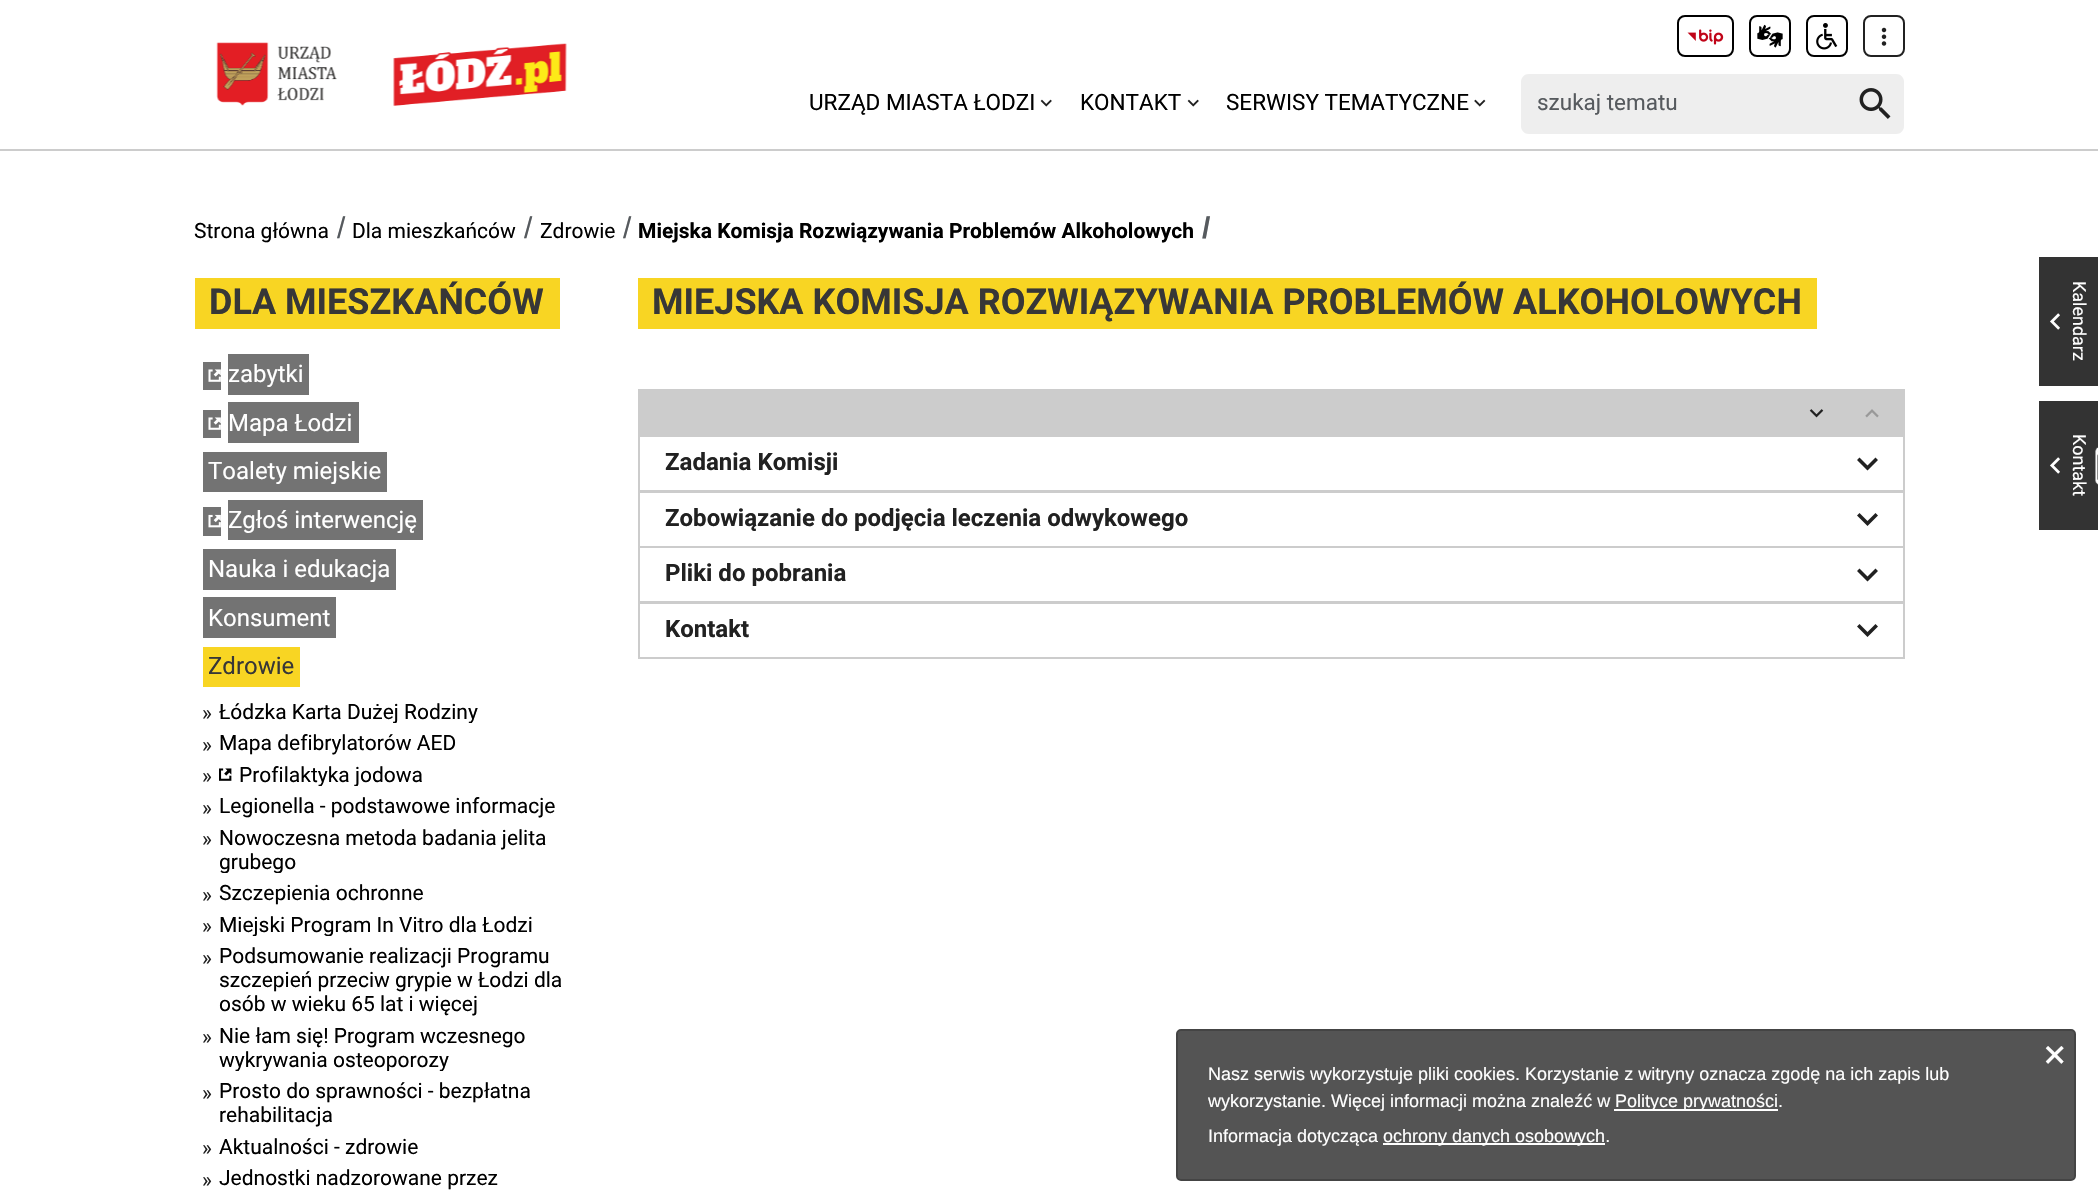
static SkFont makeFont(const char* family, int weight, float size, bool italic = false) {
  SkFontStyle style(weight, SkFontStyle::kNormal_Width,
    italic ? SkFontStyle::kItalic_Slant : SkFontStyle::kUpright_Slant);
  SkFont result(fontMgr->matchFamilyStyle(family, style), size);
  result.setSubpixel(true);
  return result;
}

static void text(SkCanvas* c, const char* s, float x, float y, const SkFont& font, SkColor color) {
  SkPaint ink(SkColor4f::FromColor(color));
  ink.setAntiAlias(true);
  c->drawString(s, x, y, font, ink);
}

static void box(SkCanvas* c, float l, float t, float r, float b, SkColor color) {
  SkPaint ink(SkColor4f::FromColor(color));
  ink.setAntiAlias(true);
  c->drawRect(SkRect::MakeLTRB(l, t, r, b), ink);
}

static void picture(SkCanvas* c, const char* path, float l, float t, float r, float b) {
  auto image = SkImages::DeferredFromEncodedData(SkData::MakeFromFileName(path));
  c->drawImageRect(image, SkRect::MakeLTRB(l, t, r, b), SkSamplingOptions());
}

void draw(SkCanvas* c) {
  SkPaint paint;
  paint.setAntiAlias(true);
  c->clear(0xffffffff);
  box(c, 0, 149, 2098, 151, 0xffcccccc);
  picture(c, "img_01.png", 216, 42, 337, 106);
  picture(c, "img_02.png", 393, 43, 567, 106);
  paint.setStyle(SkPaint::kStroke_Style);
  paint.setStrokeWidth(2);
  paint.setColor(0xff000000);
  c->drawRoundRect(SkRect::MakeLTRB(1678, 16, 1733, 56), 7, 7, paint);
  picture(c, "img_03.png", 1687, 29, 1724, 45);
  c->drawRoundRect(SkRect::MakeLTRB(1750, 16, 1790, 56), 7, 7, paint);
  picture(c, "img_04.png", 1757, 24, 1783, 48);
  c->drawRoundRect(SkRect::MakeLTRB(1807, 16, 1847, 56), 7, 7, paint);
  picture(c, "img_05.png", 1816, 23, 1838, 50);
  paint.setColor(0xff212121);
  c->drawRoundRect(SkRect::MakeLTRB(1864, 16, 1904, 56), 7, 7, paint);
  picture(c, "img_06.png", 1881, 27, 1887, 46);
  SkFont face1 = makeFont("Roboto", 400, 22.5f);
  text(c, "URZĄD MIASTA ŁODZI", 809, 110, face1, 0xff000000);
  picture(c, "img_07.png", 1040, 99, 1052, 107);
  text(c, "KONTAKT", 1080, 110, face1, 0xff000000);
  picture(c, "img_07.png", 1187, 99, 1199, 107);
  text(c, "SERWISY TEMATYCZNE", 1226, 110, face1, 0xff000000);
  picture(c, "img_08.png", 1474, 99, 1486, 107);
  paint.setStyle(SkPaint::kFill_Style);
  paint.setColor(0xffeeeeee);
  c->drawPath(SkPathBuilder().moveTo(1529, 74).lineTo(1847, 74).lineTo(1847, 134).lineTo(1529, 134).cubicTo(1524.5f, 134, 1521, 130.5f, 1521, 126).lineTo(1521, 82).cubicTo(1521, 77.5f, 1524.5f, 74, 1529, 74).close().detach(), paint);
  text(c, "szukaj tematu", 1537, 110, face1, 0xff565a5e);
  c->drawPath(SkPathBuilder().moveTo(1847, 74).lineTo(1896, 74).cubicTo(1900.5f, 74, 1904, 77.5f, 1904, 82).lineTo(1904, 126).cubicTo(1904, 130.5f, 1900.5f, 134, 1896, 134).lineTo(1847, 134).close().detach(), paint);
  picture(c, "img_09.png", 1859, 88, 1891, 119);
  SkFont face2 = makeFont("Roboto", 400, 21);
  text(c, "Strona główna", 194, 238, face2, 0xff000000);
  SkFont face3 = makeFont("Liberation Sans", 400, 30);
  text(c, "/", 337, 238, face3, 0xff565a5e);
  text(c, "Dla mieszkańców", 352, 238, face2, 0xff000000);
  text(c, "/", 524, 238, face3, 0xff565a5e);
  text(c, "Zdrowie", 540, 238, face2, 0xff000000);
  text(c, "/", 623, 238, face3, 0xff565a5e);
  SkFont face4 = makeFont("Roboto", 700, 21);
  text(c, "Miejska Komisja Rozwiązywania Problemów Alkoholowych", 638, 238, face4, 0xff000000);
  SkFont face5 = makeFont("Liberation Sans", 700, 30);
  text(c, "/", 1202, 238, face5, 0xff565a5e);
  box(c, 195, 278, 560, 329, 0xfff8d523);
  SkFont face6 = makeFont("Roboto", 700, 36);
  text(c, "DLA MIESZKAŃCÓW", 209, 314, face6, 0xff373737);
  box(c, 203, 362, 221, 390, 0xff737373);
  picture(c, "img_10.png", 208, 369, 221, 382);
  box(c, 228, 354, 309, 395, 0xff737373);
  SkFont face7 = makeFont("Roboto", 400, 24);
  text(c, "zabytki", 228, 382, face7, 0xffffffff);
  box(c, 203, 410, 221, 438, 0xff737373);
  picture(c, "img_10.png", 208, 417, 221, 430);
  box(c, 228, 402, 359, 443, 0xff737373);
  text(c, "Mapa Łodzi", 228, 431, face7, 0xffffffff);
  box(c, 203, 452, 387, 492, 0xff737373);
  text(c, "Toalety miejskie", 208, 479, face7, 0xffffffff);
  box(c, 203, 507, 221, 536, 0xff737373);
  picture(c, "img_11.png", 208, 514, 221, 528);
  box(c, 228, 500, 423, 540, 0xff737373);
  text(c, "Zgłoś interwencję", 228, 528, face7, 0xffffffff);
  box(c, 203, 549, 396, 590, 0xff737373);
  text(c, "Nauka i edukacja", 208, 577, face7, 0xffffffff);
  box(c, 203, 597, 336, 638, 0xff737373);
  text(c, "Konsument", 208, 626, face7, 0xffffffff);
  box(c, 203, 647, 300, 687, 0xfff8d523);
  text(c, "Zdrowie", 208, 674, face7, 0xff373737);
  text(c, "»", 202, 720, face2, 0xff212121);
  c->save();
  c->clipRect(SkRect::MakeLTRB(219, 699, 570, 723));
  text(c, "Łódzka Karta Dużej Rodziny", 219, 719, face2, 0xff000000);
  c->restore();
  text(c, "»", 202, 752, face2, 0xff212121);
  text(c, "Mapa defibrylatorów AED", 219, 750, face2, 0xff000000);
  text(c, "»", 202, 783, face2, 0xff212121);
  picture(c, "img_12.png", 219, 768, 232, 781);
  c->save();
  c->clipRect(SkRect::MakeLTRB(219, 762, 570, 786));
  text(c, "Profilaktyka jodowa", 239, 782, face2, 0xff000000);
  c->restore();
  text(c, "»", 202, 815, face2, 0xff212121);
  text(c, "Legionella - podstawowe informacje", 219, 813, face2, 0xff000000);
  text(c, "»", 202, 846, face2, 0xff212121);
  text(c, "Nowoczesna metoda badania jelita", 219, 845, face2, 0xff000000);
  c->save();
  c->clipRect(SkRect::MakeLTRB(219, 825, 570, 873));
  text(c, "grubego", 219, 869, face2, 0xff000000);
  c->restore();
  text(c, "»", 202, 902, face2, 0xff212121);
  text(c, "Szczepienia ochronne", 219, 900, face2, 0xff000000);
  text(c, "»", 202, 933, face2, 0xff212121);
  c->save();
  c->clipRect(SkRect::MakeLTRB(219, 912, 570, 936));
  text(c, "Miejski Program In Vitro dla Łodzi", 219, 932, face2, 0xff000000);
  c->restore();
  text(c, "»", 202, 965, face2, 0xff212121);
  text(c, "Podsumowanie realizacji Programu", 219, 963, face2, 0xff000000);
  text(c, "szczepień przeciw grypie w Łodzi dla", 219, 987, face2, 0xff000000);
  text(c, "osób w wieku 65 lat i więcej", 219, 1011, face2, 0xff000000);
  text(c, "»", 202, 1044, face2, 0xff212121);
  text(c, "Nie łam się! Program wczesnego", 219, 1043, face2, 0xff000000);
  c->save();
  c->clipRect(SkRect::MakeLTRB(219, 1023, 570, 1071));
  text(c, "wykrywania osteoporozy", 219, 1067, face2, 0xff000000);
  c->restore();
  text(c, "»", 202, 1100, face2, 0xff212121);
  text(c, "Prosto do sprawności - bezpłatna", 219, 1098, face2, 0xff000000);
  text(c, "rehabilitacja", 219, 1122, face2, 0xff000000);
  text(c, "»", 202, 1155, face2, 0xff212121);
  text(c, "Aktualności - zdrowie", 219, 1154, face2, 0xff000000);
  text(c, "»", 202, 1187, face2, 0xff212121);
  text(c, "Jednostki nadzorowane przez", 219, 1185, face2, 0xff000000);
  box(c, 638, 278, 1817, 329, 0xfff8d523);
  text(c, "MIEJSKA KOMISJA ROZWIĄZYWANIA PROBLEMÓW ALKOHOLOWYCH", 652, 314, face6, 0xff373737);
  box(c, 638, 389, 1905, 435, 0xffcccccc);
  picture(c, "img_13.png", 1809, 409, 1824, 418);
  picture(c, "img_14.png", 1865, 409, 1879, 418);
  paint.setStyle(SkPaint::kStroke_Style);
  paint.setColor(0xffcccccc);
  c->drawRect(SkRect::MakeLTRB(639, 436, 1904, 491), paint);
  SkFont face8 = makeFont("Roboto", 700, 24);
  text(c, "Zadania Komisji", 665, 470, face8, 0xff212121);
  paint.setStyle(SkPaint::kFill_Style);
  paint.setColor(0xff212121);
  c->drawPath(SkPathBuilder().moveTo(1859.5f, 457.5f).lineTo(1867.5f, 465.5f).lineTo(1875.5f, 457.5f).lineTo(1878, 460).lineTo(1867.5f, 470.5f).lineTo(1857, 460).close().detach(), paint);
  paint.setStyle(SkPaint::kStroke_Style);
  paint.setColor(0xffcccccc);
  c->drawRect(SkRect::MakeLTRB(639, 492, 1904, 547), paint);
  text(c, "Zobowiązanie do podjęcia leczenia odwykowego", 665, 526, face8, 0xff212121);
  paint.setStyle(SkPaint::kFill_Style);
  paint.setColor(0xff212121);
  c->drawPath(SkPathBuilder().moveTo(1859.5f, 513).lineTo(1867.5f, 521).lineTo(1875.5f, 513).lineTo(1878, 515.5f).lineTo(1867.5f, 526).lineTo(1857, 515.5f).close().detach(), paint);
  paint.setStyle(SkPaint::kStroke_Style);
  paint.setColor(0xffcccccc);
  c->drawRect(SkRect::MakeLTRB(639, 547, 1904, 602), paint);
  text(c, "Pliki do pobrania", 665, 581, face8, 0xff212121);
  paint.setStyle(SkPaint::kFill_Style);
  paint.setColor(0xff212121);
  c->drawPath(SkPathBuilder().moveTo(1859.5f, 568.5f).lineTo(1867.5f, 576.5f).lineTo(1875.5f, 568.5f).lineTo(1878, 571).lineTo(1867.5f, 581.5f).lineTo(1857, 571).close().detach(), paint);
  paint.setStyle(SkPaint::kStroke_Style);
  paint.setColor(0xffcccccc);
  c->drawRect(SkRect::MakeLTRB(639, 603, 1904, 658), paint);
  text(c, "Kontakt", 665, 637, face8, 0xff212121);
  paint.setStyle(SkPaint::kFill_Style);
  paint.setColor(0xff212121);
  c->drawPath(SkPathBuilder().moveTo(1859.5f, 624).lineTo(1867.5f, 632).lineTo(1875.5f, 624).lineTo(1878, 626.5f).lineTo(1867.5f, 637).lineTo(1857, 626.5f).close().detach(), paint);
  box(c, 2039, 257, 2098, 386, 0xff333333);
  picture(c, "img_15.png", 2050, 313, 2060, 330);
  SkFont face9 = makeFont("Roboto", 400, 18);
  c->save();
  c->rotate(90, 2073, 281);
  text(c, "Kalendarz", 2073, 281, face9, 0xffffffff);
  c->restore();
  box(c, 2039, 401, 2098, 530, 0xff333333);
  picture(c, "img_15.png", 2050, 457, 2060, 474);
  c->save();
  c->rotate(90, 2073, 434);
  text(c, "Kontakt", 2073, 434, face9, 0xffffffff);
  c->restore();
  picture(c, "img_16.png", 2095, 447, 2098, 485);
  paint.setColor(0xff545454);
  c->drawRoundRect(SkRect::MakeLTRB(1177, 1030, 2075, 1180), 4, 4, paint);
  paint.setStyle(SkPaint::kStroke_Style);
  paint.setColor(0xff444444);
  c->drawRoundRect(SkRect::MakeLTRB(1177, 1030, 2075, 1180), 4, 4, paint);
  SkFont face10 = makeFont("DejaVu Sans Mono", 400, 39);
  text(c, "×", 2043, 1067, face10, 0xffffffff);
  SkFont face11 = makeFont("Liberation Sans", 400, 18);
  text(c, "Nasz serwis wykorzystuje pliki cookies. Korzystanie z witryny oznacza zgodę na ich zapis lub", 1208, 1080, face11, 0xffffffff);
  text(c, "wykorzystanie. Więcej informacji można znaleźć w", 1208, 1107, face11, 0xffffffff);
  box(c, 1614, 1109, 1778, 1111, 0xffffffff);
  text(c, "Polityce prywatności.", 1615, 1107, face11, 0xffffffff);
  text(c, "Informacja dotycząca", 1208, 1142, face11, 0xffffffff);
  box(c, 1383, 1143, 1605, 1145, 0xffffffff);
  text(c, "ochrony danych osobowych.", 1383, 1142, face11, 0xffffffff);
}
